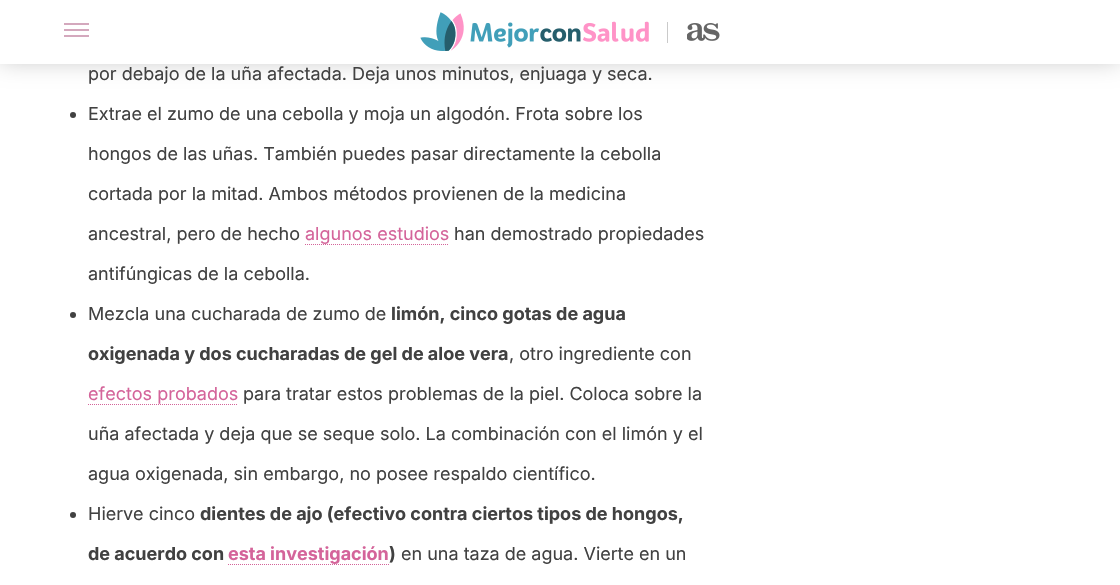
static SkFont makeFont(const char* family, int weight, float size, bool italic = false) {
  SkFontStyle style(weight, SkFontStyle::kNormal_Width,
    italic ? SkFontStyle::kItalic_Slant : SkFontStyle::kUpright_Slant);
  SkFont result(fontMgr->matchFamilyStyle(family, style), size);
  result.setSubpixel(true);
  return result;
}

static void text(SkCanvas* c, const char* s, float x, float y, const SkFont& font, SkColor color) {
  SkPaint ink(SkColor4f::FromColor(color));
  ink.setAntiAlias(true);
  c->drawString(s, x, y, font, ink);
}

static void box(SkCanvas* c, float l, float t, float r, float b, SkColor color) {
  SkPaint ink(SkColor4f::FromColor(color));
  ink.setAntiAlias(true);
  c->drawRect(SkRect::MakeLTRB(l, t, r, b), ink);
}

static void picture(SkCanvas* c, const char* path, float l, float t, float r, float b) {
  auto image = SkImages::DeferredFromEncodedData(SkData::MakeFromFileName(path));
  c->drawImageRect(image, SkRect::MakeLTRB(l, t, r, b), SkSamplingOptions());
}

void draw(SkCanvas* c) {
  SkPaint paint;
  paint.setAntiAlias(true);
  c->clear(0xffffffff);
  paint.setColor(0x40000000);
  paint.setMaskFilter(SkMaskFilter::MakeBlur(kNormal_SkBlurStyle, 12));
  c->drawRect(SkRect::MakeLTRB(0, -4, 1120, 60), paint);
  paint.setMaskFilter(nullptr);
  box(c, 0, 0, 1120, 64, 0xffffffff);
  box(c, 64, 23, 89, 25, 0xffd4a8bd);
  box(c, 64, 29, 89, 31, 0xffd4a8bd);
  box(c, 64, 35, 89, 37, 0xffd4a8bd);
  picture(c, "img_01.png", 420, 12, 649, 51);
  box(c, 667, 22, 668, 43, 0xffcacaca);
  picture(c, "img_02.png", 687, 23, 720, 41);
  SkFont face1 = makeFont("Inter", 400, 18);
  text(c, "por debajo de la uña afectada. Deja unos minutos, enjuaga y seca.", 88, 80, face1, 0xff414141);
  paint.setColor(0xff414141);
  c->drawCircle(73, 115, 3, paint);
  text(c, "Extrae el zumo de una cebolla y moja un algodón. Frota sobre los", 88, 120, face1, 0xff414141);
  text(c, "hongos de las uñas. También puedes pasar directamente la cebolla", 88, 160, face1, 0xff414141);
  text(c, "cortada por la mitad. Ambos métodos provienen de la medicina", 88, 200, face1, 0xff414141);
  text(c, "ancestral, pero de hecho", 88, 240, face1, 0xff414141);
  text(c, "algunos estudios", 305, 240, face1, 0xffd4649a);
  paint.setStyle(SkPaint::kStroke_Style);
  paint.setStrokeWidth(1);
  paint.setColor(0xffd4649a);
  paint.setPathEffect(SkDashPathEffect::Make({{1, 1}}, 0));
  c->drawPath(SkPathBuilder().moveTo(305, 244.5f).lineTo(449, 244.5f).detach(), paint);
  paint.setPathEffect(nullptr);
  text(c, "han demostrado propiedades", 454, 240, face1, 0xff414141);
  text(c, "antifúngicas de la cebolla.", 88, 280, face1, 0xff414141);
  paint.setStyle(SkPaint::kFill_Style);
  paint.setColor(0xff414141);
  c->drawCircle(73, 315, 3, paint);
  text(c, "Mezcla una cucharada de zumo de", 88, 320, face1, 0xff414141);
  SkFont face2 = makeFont("Inter", 700, 18);
  text(c, "limón, cinco gotas de agua", 391, 320, face2, 0xff414141);
  text(c, "oxigenada y dos cucharadas de gel de aloe vera", 88, 360, face2, 0xff414141);
  text(c, ", otro ingrediente con", 509, 360, face1, 0xff414141);
  text(c, "efectos probados", 88, 400, face1, 0xffd4649a);
  paint.setStyle(SkPaint::kStroke_Style);
  paint.setColor(0xffd4649a);
  paint.setPathEffect(SkDashPathEffect::Make({{1, 1}}, 0));
  c->drawPath(SkPathBuilder().moveTo(88, 404.5f).lineTo(238, 404.5f).detach(), paint);
  paint.setPathEffect(nullptr);
  text(c, "para tratar estos problemas de la piel. Coloca sobre la", 243, 400, face1, 0xff414141);
  text(c, "uña afectada y deja que se seque solo. La combinación con el limón y el", 88, 440, face1, 0xff414141);
  text(c, "agua oxigenada, sin embargo, no posee respaldo científico.", 88, 480, face1, 0xff414141);
  paint.setStyle(SkPaint::kFill_Style);
  paint.setColor(0xff414141);
  c->drawCircle(73, 515, 3, paint);
  text(c, "Hierve cinco", 88, 520, face1, 0xff414141);
  text(c, "dientes de ajo (efectivo contra ciertos tipos de hongos,", 200, 520, face2, 0xff414141);
  text(c, "de acuerdo con", 88, 560, face2, 0xff414141);
  text(c, "esta investigación", 228, 560, face2, 0xffd4649a);
  paint.setStyle(SkPaint::kStroke_Style);
  paint.setColor(0xffd4649a);
  paint.setPathEffect(SkDashPathEffect::Make({{1, 1}}, 0));
  c->drawPath(SkPathBuilder().moveTo(228, 564.5f).lineTo(389, 564.5f).detach(), paint);
  paint.setPathEffect(nullptr);
  text(c, ")", 389, 560, face2, 0xff414141);
  text(c, "en una taza de agua. Vierte en un", 401, 560, face1, 0xff414141);
}
